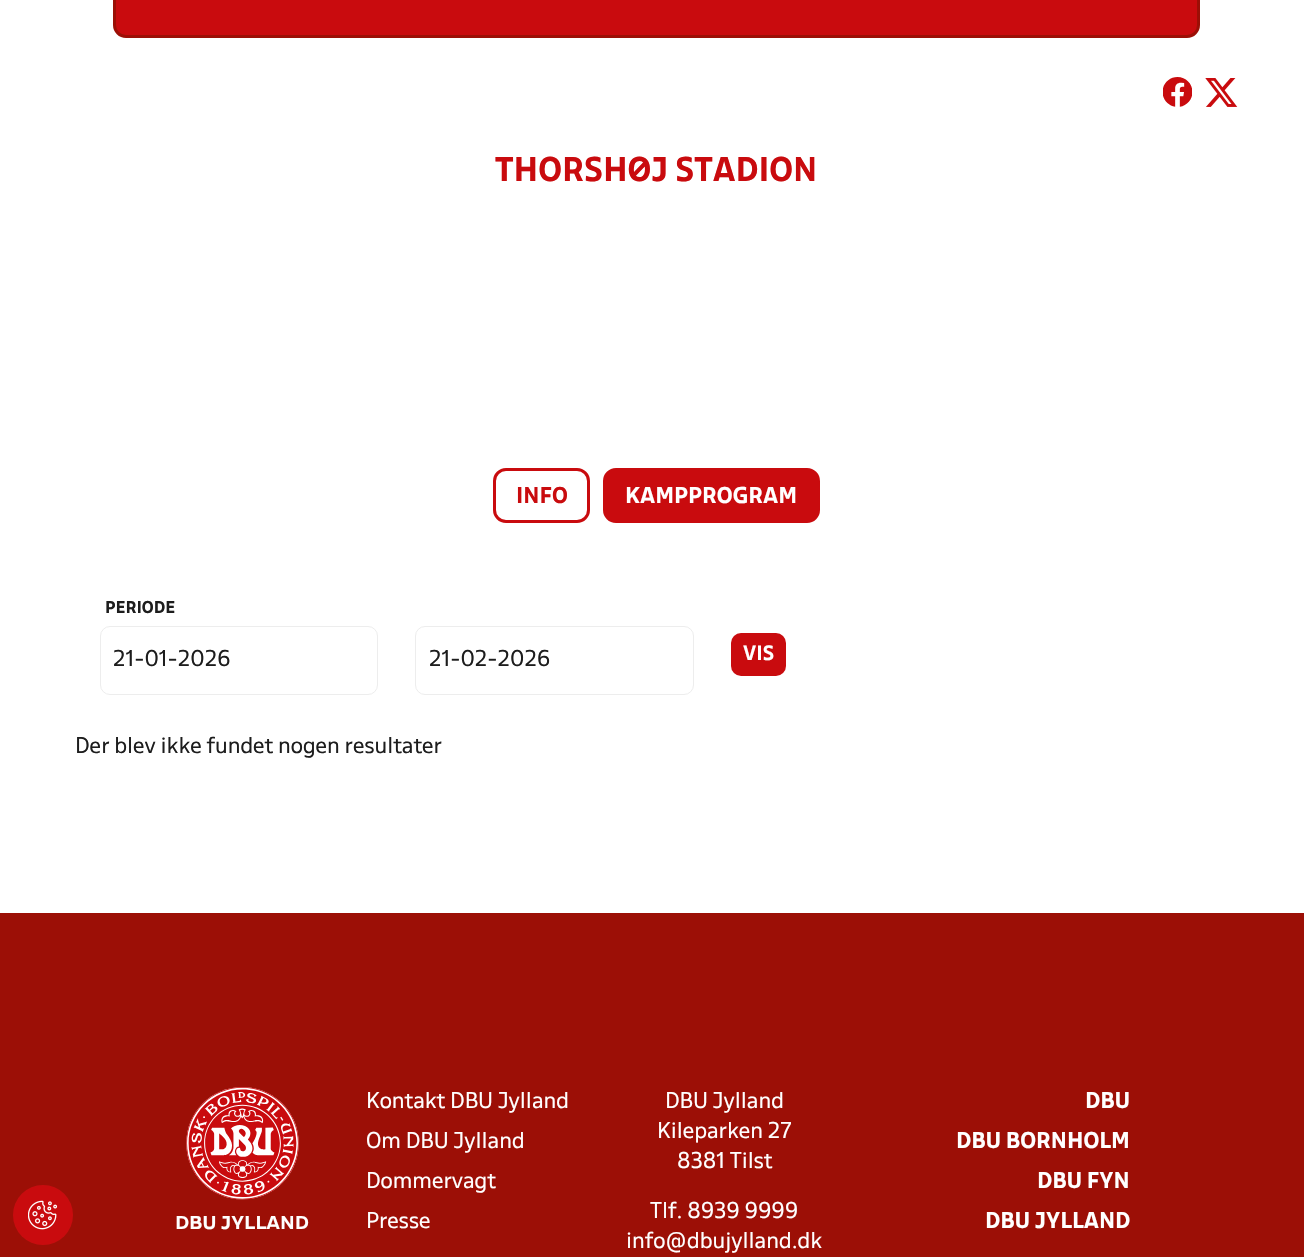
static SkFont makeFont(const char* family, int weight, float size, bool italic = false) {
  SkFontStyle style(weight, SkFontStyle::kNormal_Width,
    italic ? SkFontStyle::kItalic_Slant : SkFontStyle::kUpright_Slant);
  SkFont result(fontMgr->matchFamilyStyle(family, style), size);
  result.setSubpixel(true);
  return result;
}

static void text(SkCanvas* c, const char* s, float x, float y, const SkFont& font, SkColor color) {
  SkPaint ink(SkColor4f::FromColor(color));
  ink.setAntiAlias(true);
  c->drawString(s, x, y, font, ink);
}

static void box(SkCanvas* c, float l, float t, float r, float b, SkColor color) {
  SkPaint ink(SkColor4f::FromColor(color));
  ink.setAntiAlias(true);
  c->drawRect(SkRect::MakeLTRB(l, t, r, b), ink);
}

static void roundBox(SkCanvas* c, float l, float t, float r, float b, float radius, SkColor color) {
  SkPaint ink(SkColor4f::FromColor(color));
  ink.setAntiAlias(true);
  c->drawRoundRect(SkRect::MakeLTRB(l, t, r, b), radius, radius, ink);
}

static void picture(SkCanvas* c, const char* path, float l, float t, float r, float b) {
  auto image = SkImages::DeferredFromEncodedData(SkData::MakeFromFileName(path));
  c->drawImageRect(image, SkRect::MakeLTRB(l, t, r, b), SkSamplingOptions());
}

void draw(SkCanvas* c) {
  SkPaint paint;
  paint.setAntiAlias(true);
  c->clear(0xffffffff);
  paint.setColor(0xffc90b0e);
  c->drawRoundRect(SkRect::MakeLTRB(114.5f, -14.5f, 1198.5f, 36.5f), 11.5f, 11.5f, paint);
  paint.setStyle(SkPaint::kStroke_Style);
  paint.setStrokeWidth(3);
  paint.setColor(0xff9c0f06);
  c->drawRoundRect(SkRect::MakeLTRB(114.5f, -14.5f, 1198.5f, 36.5f), 11.5f, 11.5f, paint);
  picture(c, "img_01.png", 1163, 77, 1192, 107);
  picture(c, "img_02.png", 1205, 78, 1238, 107);
  SkFont face1 = makeFont("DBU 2", 700, 30);
  text(c, "THORSHØJ STADION", 495, 181, face1, 0xffc90b0e);
  paint.setColor(0xffc90b0e);
  c->drawRoundRect(SkRect::MakeLTRB(494.5f, 469.5f, 588.5f, 521.5f), 11.5f, 11.5f, paint);
  SkFont face2 = makeFont("DBU 2", 700, 20);
  text(c, "INFO", 516, 503, face2, 0xffc90b0e);
  paint.setStyle(SkPaint::kFill_Style);
  c->drawRoundRect(SkRect::MakeLTRB(604.5f, 469.5f, 818.5f, 521.5f), 11.5f, 11.5f, paint);
  paint.setStyle(SkPaint::kStroke_Style);
  c->drawRoundRect(SkRect::MakeLTRB(604.5f, 469.5f, 818.5f, 521.5f), 11.5f, 11.5f, paint);
  text(c, "KAMPPROGRAM", 625, 503, face2, 0xffffffff);
  SkFont face3 = makeFont("DBU 2", 700, 15);
  text(c, "PERIODE", 105, 613, face3, 0xff1d1d1d);
  paint.setStrokeWidth(1);
  paint.setColor(0xffededed);
  c->drawRoundRect(SkRect::MakeLTRB(100.5f, 626.5f, 377.5f, 694.5f), 9.5f, 9.5f, paint);
  SkFont face4 = makeFont("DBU", 400, 20);
  text(c, "21-01-2026", 113, 666, face4, 0xff1d1d1d);
  c->drawRoundRect(SkRect::MakeLTRB(415.5f, 626.5f, 693.5f, 694.5f), 9.5f, 9.5f, paint);
  text(c, "21-02-2026", 429, 666, face4, 0xff1d1d1d);
  roundBox(c, 731, 633, 786, 676, 10, 0xffc90b0e);
  SkFont face5 = makeFont("DBU 2", 700, 18);
  text(c, "VIS", 743, 660, face5, 0xffffffff);
  text(c, "Der blev ikke fundet nogen resultater", 75, 753, face4, 0xff1d1d1d);
  box(c, 0, 913, 1304, 1257, 0xff9c0f06);
  paint.setStyle(SkPaint::kFill_Style);
  paint.setColor(0xffc90b0e);
  c->drawCircle(43, 1215, 30, paint);
  picture(c, "img_03.png", 28, 1200, 58, 1230);
  picture(c, "img_04.png", 186, 1087, 299, 1200);
  SkFont face6 = makeFont("DBU", 700, 16.25f);
  text(c, "DBU JYLLAND", 175, 1229, face6, 0xffffffff);
  text(c, "Kontakt DBU Jylland", 366, 1108, face4, 0xffffffff);
  text(c, "Om DBU Jylland", 366, 1148, face4, 0xffffffff);
  text(c, "Dommervagt", 366, 1188, face4, 0xffffffff);
  text(c, "Presse", 366, 1228, face4, 0xffffffff);
  text(c, "DBU Jylland", 665, 1108, face4, 0xffffffff);
  text(c, "Kileparken 27", 657, 1138, face4, 0xffffffff);
  text(c, "8381 Tilst", 677, 1168, face4, 0xffffffff);
  text(c, "Tlf. 8939 9999", 650, 1218, face4, 0xffffffff);
  text(c, "info@dbujylland.dk", 626, 1248, face4, 0xffffffff);
  text(c, "DBU", 1085, 1108, face2, 0xffffffff);
  text(c, "DBU BORNHOLM", 956, 1148, face2, 0xffffffff);
  text(c, "DBU FYN", 1037, 1188, face2, 0xffffffff);
  text(c, "DBU JYLLAND", 985, 1228, face2, 0xffffffff);
}
